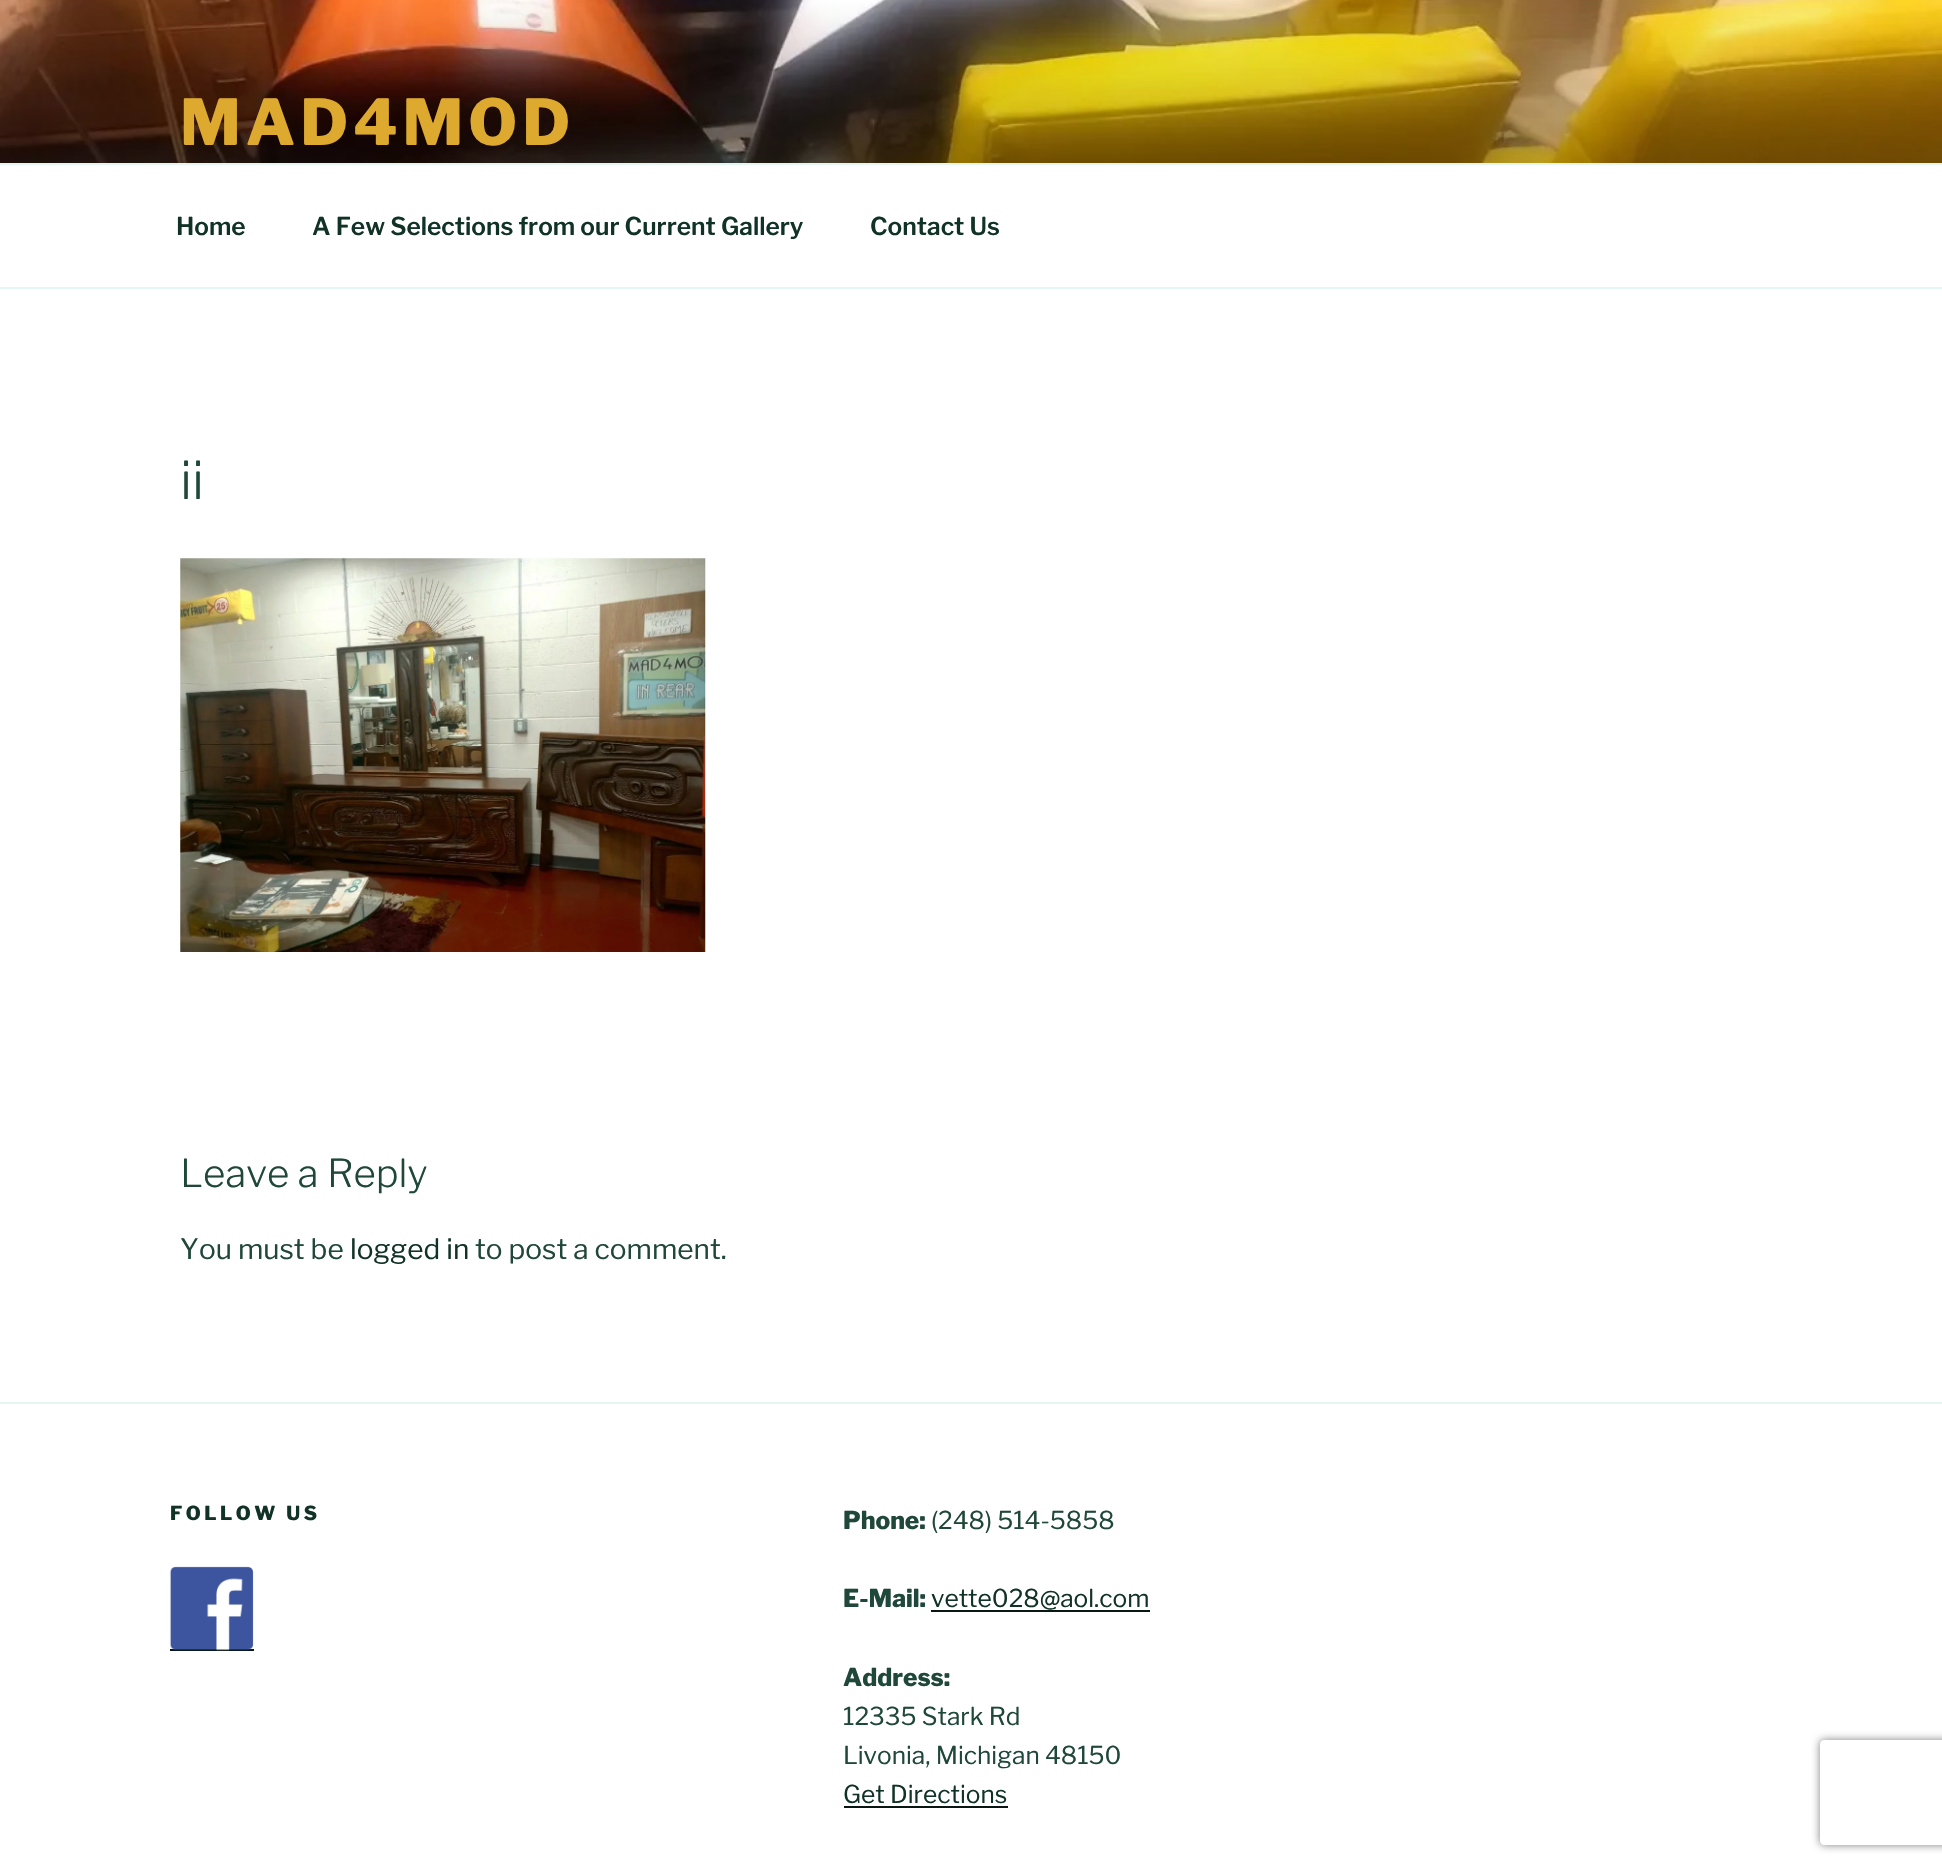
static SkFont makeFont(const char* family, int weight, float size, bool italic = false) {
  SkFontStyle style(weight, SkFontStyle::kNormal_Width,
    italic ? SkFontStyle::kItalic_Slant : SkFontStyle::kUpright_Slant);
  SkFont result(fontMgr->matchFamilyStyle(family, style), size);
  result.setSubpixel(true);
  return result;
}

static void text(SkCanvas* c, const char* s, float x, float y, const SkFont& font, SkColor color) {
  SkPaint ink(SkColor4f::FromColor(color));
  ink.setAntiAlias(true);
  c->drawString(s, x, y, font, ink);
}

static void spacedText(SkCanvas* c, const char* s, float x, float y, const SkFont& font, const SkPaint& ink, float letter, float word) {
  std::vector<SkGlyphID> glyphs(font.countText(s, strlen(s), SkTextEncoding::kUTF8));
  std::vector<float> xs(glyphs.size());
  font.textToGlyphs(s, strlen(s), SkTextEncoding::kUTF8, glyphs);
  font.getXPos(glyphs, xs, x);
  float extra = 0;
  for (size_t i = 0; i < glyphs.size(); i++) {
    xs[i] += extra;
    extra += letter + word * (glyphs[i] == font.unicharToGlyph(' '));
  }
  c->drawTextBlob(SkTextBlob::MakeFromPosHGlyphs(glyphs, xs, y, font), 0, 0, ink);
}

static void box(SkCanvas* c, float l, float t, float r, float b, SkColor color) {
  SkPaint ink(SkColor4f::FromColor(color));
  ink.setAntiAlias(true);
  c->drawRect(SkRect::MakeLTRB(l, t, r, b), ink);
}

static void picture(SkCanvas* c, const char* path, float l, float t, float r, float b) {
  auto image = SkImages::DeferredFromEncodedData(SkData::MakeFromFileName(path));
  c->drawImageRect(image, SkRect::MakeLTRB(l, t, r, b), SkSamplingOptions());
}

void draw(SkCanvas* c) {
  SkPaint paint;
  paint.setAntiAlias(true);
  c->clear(0xffffffff);
  picture(c, "img_01.png", 0, 0, 1942, 163);
  SkFont face1 = makeFont("Libre Franklin", 100, 63);
  paint.setColor(0xffdda92e);
  spacedText(c, "MAD4MOD", 180, 145, face1, paint, 5, 0);
  box(c, 0, 163, 1942, 165, 0xffe4f6f0);
  box(c, 0, 287, 1942, 289, 0xffe4f6f0);
  SkFont face2 = makeFont("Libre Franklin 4", 100, 24.5f);
  text(c, "Home", 176, 235, face2, 0xff113227);
  text(c, "A Few Selections from our Current Gallery", 312, 235, face2, 0xff113227);
  text(c, "Contact Us", 870, 235, face2, 0xff113227);
  SkFont face3 = makeFont("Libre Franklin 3", 100, 52);
  text(c, "ii", 180, 499, face3, 0xff1f473a);
  picture(c, "img_02.png", 180, 558, 706, 952);
  SkFont face4 = makeFont("Libre Franklin 3", 100, 38.5f);
  text(c, "Leave a Reply", 180, 1187, face4, 0xff1f473a);
  SkFont face5 = makeFont("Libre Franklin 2", 100, 28);
  text(c, "You must be", 180, 1259, face5, 0xff1f473a);
  text(c, "logged in", 350, 1259, face5, 0xff113227);
  text(c, "to post a comment.", 475, 1259, face5, 0xff1f473a);
  box(c, 0, 1402, 1942, 1404, 0xffe4f6f0);
  SkFont face6 = makeFont("Libre Franklin", 100, 19.25f);
  paint.setColor(0xff113227);
  spacedText(c, "FOLLOW US", 170, 1520, face6, paint, 3.5f, 0);
  box(c, 170, 1649, 254, 1651, 0xff081712);
  picture(c, "img_03.png", 169, 1566, 254, 1651);
  SkFont face7 = makeFont("Libre Franklin", 100, 24.5f);
  text(c, "Phone:", 843, 1529, face7, 0xff1f473a);
  SkFont face8 = makeFont("Libre Franklin 2", 100, 24.5f);
  text(c, "(248) 514-5858", 931, 1529, face8, 0xff1f473a);
  text(c, "E-Mail:", 843, 1607, face7, 0xff1f473a);
  text(c, "vette028@aol.com", 931, 1607, face8, 0xff113227);
  box(c, 931, 1610, 1150, 1612, 0xff081712);
  text(c, "Address:", 843, 1686, face7, 0xff1f473a);
  text(c, "12335 Stark Rd", 843, 1725, face8, 0xff1f473a);
  text(c, "Livonia, Michigan 48150", 843, 1764, face8, 0xff1f473a);
  text(c, "Get Directions", 843, 1803, face8, 0xff113227);
  box(c, 844, 1806, 1008, 1808, 0xff081712);
  c->save();
  c->clipPath(SkPathBuilder(SkPathFillType::kEvenOdd).moveTo(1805, 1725).lineTo(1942, 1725).lineTo(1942, 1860).lineTo(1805, 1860).close().moveTo(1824, 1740).lineTo(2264, 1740).cubicTo(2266, 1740, 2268, 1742, 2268, 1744).lineTo(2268, 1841).cubicTo(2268, 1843, 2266, 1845, 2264, 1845).lineTo(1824, 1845).cubicTo(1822, 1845, 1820, 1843, 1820, 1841).lineTo(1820, 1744).cubicTo(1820, 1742, 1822, 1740, 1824, 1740).close().detach(), true);
  paint.setColor(0xff808080);
  paint.setMaskFilter(SkMaskFilter::MakeBlur(kNormal_SkBlurStyle, 4.5f));
  c->drawRoundRect(SkRect::MakeLTRB(1820, 1740, 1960, 1845), 4, 4, paint);
  paint.setMaskFilter(nullptr);
  c->restore();
}
